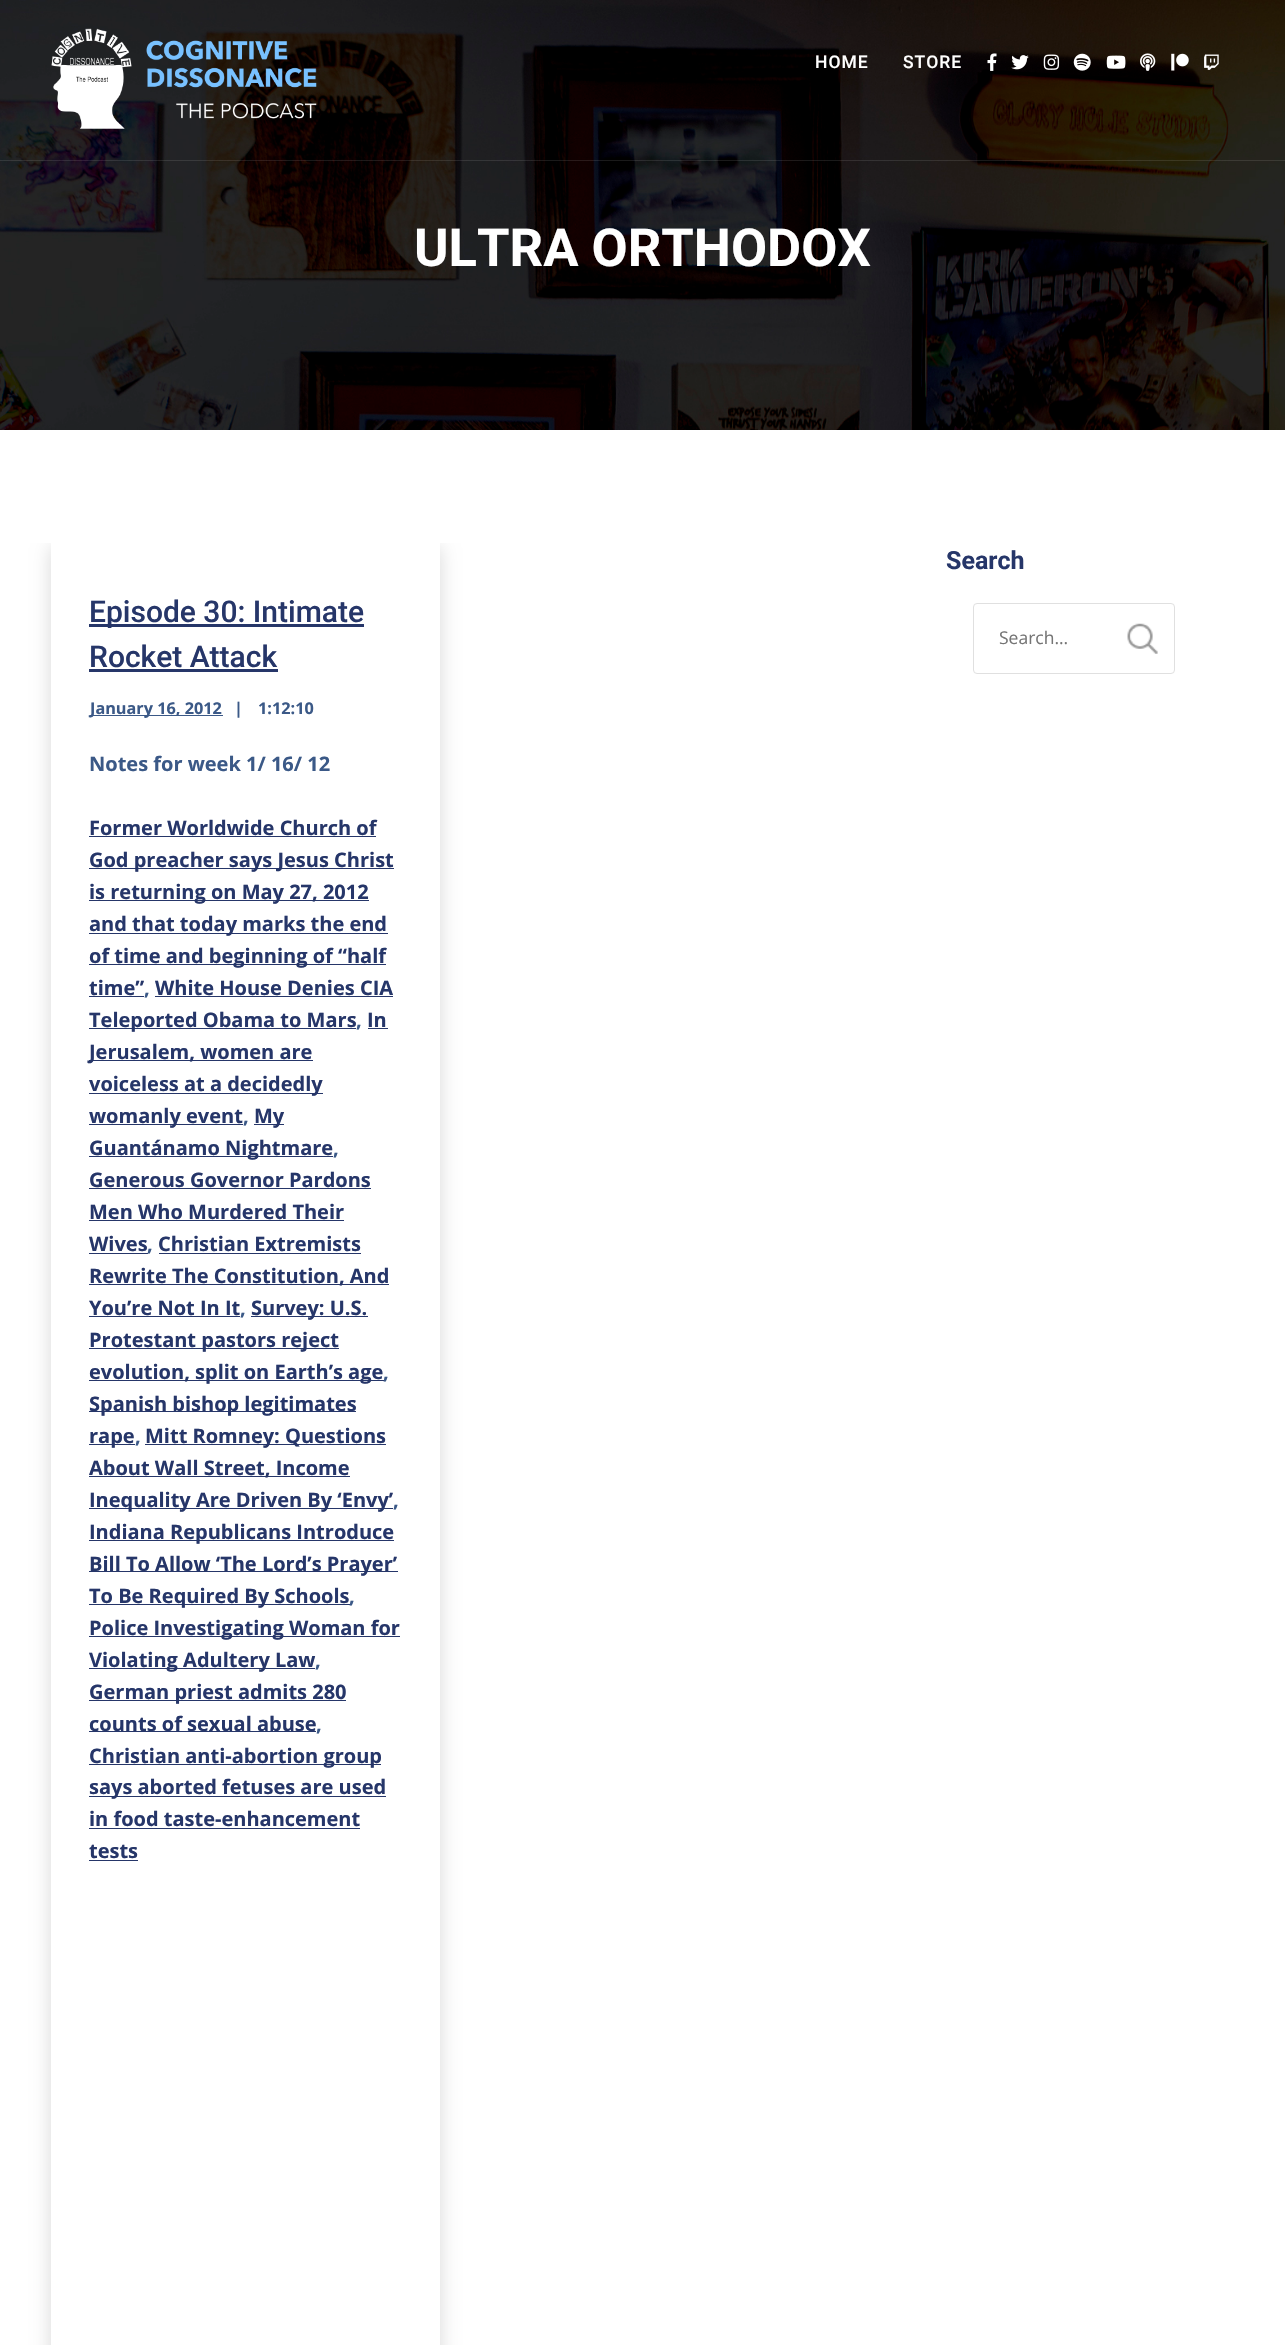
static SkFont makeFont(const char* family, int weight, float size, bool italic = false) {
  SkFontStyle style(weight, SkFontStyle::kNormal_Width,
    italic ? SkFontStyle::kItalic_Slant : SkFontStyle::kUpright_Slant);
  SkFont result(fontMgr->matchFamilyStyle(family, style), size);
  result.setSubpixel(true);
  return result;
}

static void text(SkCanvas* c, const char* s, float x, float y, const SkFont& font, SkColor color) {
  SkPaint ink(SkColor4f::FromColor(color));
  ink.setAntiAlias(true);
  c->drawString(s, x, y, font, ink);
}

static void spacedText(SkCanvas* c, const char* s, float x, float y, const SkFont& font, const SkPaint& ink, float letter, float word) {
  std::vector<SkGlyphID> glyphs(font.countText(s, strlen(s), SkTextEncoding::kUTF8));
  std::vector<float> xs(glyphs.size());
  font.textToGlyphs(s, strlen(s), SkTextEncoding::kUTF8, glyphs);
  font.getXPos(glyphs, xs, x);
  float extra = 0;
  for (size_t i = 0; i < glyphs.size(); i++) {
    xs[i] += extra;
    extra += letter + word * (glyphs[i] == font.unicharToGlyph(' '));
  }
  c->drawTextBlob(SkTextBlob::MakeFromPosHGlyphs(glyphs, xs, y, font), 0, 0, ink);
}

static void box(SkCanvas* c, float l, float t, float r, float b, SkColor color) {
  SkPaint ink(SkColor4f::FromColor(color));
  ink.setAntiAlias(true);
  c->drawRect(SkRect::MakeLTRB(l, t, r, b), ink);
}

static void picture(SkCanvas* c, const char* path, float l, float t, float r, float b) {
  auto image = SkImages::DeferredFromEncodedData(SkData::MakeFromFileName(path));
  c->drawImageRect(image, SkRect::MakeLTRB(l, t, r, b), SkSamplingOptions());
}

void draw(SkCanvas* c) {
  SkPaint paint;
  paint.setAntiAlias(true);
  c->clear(0xffffffff);
  picture(c, "img_10.png", 0, 0, 1285, 430);
  picture(c, "img_01.png", 51, 28, 317, 129);
  SkFont face1 = makeFont("Roboto", 500, 17.5f);
  paint.setColor(0xffffffff);
  spacedText(c, "HOME", 815, 68, face1, paint, 1, 0);
  spacedText(c, "STORE", 903, 68, face1, paint, 1, 0);
  picture(c, "img_02.png", 987, 53, 997, 71);
  picture(c, "img_03.png", 1011, 55, 1029, 70);
  picture(c, "img_04.png", 1043, 54, 1060, 70);
  picture(c, "img_05.png", 1073, 53, 1091, 71);
  picture(c, "img_06.png", 1106, 55, 1126, 69);
  picture(c, "img_07.png", 1140, 53, 1156, 71);
  picture(c, "img_08.png", 1171, 53, 1189, 71);
  picture(c, "img_09.png", 1204, 54, 1219, 70);
  box(c, 0, 160, 1285, 161, 0x1affffff);
  SkFont face2 = makeFont("Roboto", 700, 52.5f);
  text(c, "ULTRA ORTHODOX", 414, 266, face2, 0xffffffff);
  c->save();
  c->clipRect(SkRect::MakeLTRB(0, 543, 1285, 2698));
  paint.setColor(0x26000000);
  paint.setMaskFilter(SkMaskFilter::MakeBlur(kNormal_SkBlurStyle, 9.5f));
  c->drawRoundRect(SkRect::MakeLTRB(51, 546, 440, 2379), 5, 5, paint);
  paint.setMaskFilter(nullptr);
  c->restore();
  box(c, 51, 543, 440, 2345, 0xffffffff);
  box(c, 89, 624, 364, 627, 0xff263669);
  SkFont face3 = makeFont("Roboto", 500, 30);
  text(c, "Episode 30: Intimate", 89, 622, face3, 0xff263669);
  text(c, "Rocket Attack", 89, 667, face3, 0xff263669);
  box(c, 89, 669, 278, 672, 0xff263669);
  box(c, 90, 715, 223, 716, 0xff3b5987);
  SkFont face4 = makeFont("Open Sans", 700, 16.25f);
  text(c, "January 16, 2012", 90, 714, face4, 0xff3b5987);
  text(c, "|", 234, 714, face4, 0xff3b5987);
  text(c, "1:12:10", 258, 714, face4, 0xff3b5987);
  SkFont face5 = makeFont("Open Sans", 700, 20);
  text(c, "Notes for week 1/ 16/ 12", 89, 771, face5, 0xff3b5987);
  text(c, "Former Worldwide Church of", 89, 835, face5, 0xff263669);
  box(c, 89, 836, 376, 837, 0xff263669);
  box(c, 89, 868, 394, 869, 0xff263669);
  text(c, "God preacher says Jesus Christ", 89, 867, face5, 0xff263669);
  box(c, 89, 900, 369, 901, 0xff263669);
  text(c, "is returning on May 27, 2012", 89, 899, face5, 0xff263669);
  box(c, 89, 933, 388, 934, 0xff263669);
  text(c, "and that today marks the end", 89, 931, face5, 0xff263669);
  box(c, 89, 964, 386, 965, 0xff263669);
  text(c, "of time and beginning of “half", 89, 963, face5, 0xff263669);
  text(c, "time”", 89, 995, face5, 0xff263669);
  box(c, 89, 996, 144, 997, 0xff263669);
  text(c, ",", 144, 995, face5, 0xff3b5987);
  text(c, "White House Denies CIA", 155, 995, face5, 0xff263669);
  box(c, 155, 996, 393, 997, 0xff263669);
  box(c, 89, 1028, 356, 1029, 0xff263669);
  text(c, "Teleported Obama to Mars", 89, 1027, face5, 0xff263669);
  text(c, ",", 356, 1027, face5, 0xff3b5987);
  text(c, "In", 367, 1027, face5, 0xff263669);
  box(c, 368, 1028, 388, 1029, 0xff263669);
  box(c, 89, 1060, 313, 1061, 0xff263669);
  text(c, "Jerusalem, women are", 89, 1059, face5, 0xff263669);
  box(c, 89, 1093, 323, 1094, 0xff263669);
  text(c, "voiceless at a decidedly", 89, 1091, face5, 0xff263669);
  box(c, 89, 1124, 243, 1125, 0xff263669);
  text(c, "womanly event", 89, 1123, face5, 0xff263669);
  text(c, ",", 243, 1123, face5, 0xff3b5987);
  box(c, 254, 1124, 284, 1125, 0xff263669);
  text(c, "My", 254, 1123, face5, 0xff263669);
  box(c, 89, 1156, 333, 1157, 0xff263669);
  text(c, "Guantánamo Nightmare", 89, 1155, face5, 0xff263669);
  text(c, ",", 333, 1155, face5, 0xff3b5987);
  text(c, "Generous Governor Pardons", 89, 1187, face5, 0xff263669);
  box(c, 89, 1188, 371, 1189, 0xff263669);
  text(c, "Men Who Murdered Their", 89, 1219, face5, 0xff263669);
  box(c, 89, 1220, 344, 1221, 0xff263669);
  text(c, "Wives", 89, 1251, face5, 0xff263669);
  box(c, 89, 1253, 148, 1254, 0xff263669);
  text(c, ",", 147, 1251, face5, 0xff3b5987);
  text(c, "Christian Extremists", 158, 1251, face5, 0xff263669);
  box(c, 159, 1253, 361, 1254, 0xff263669);
  box(c, 89, 1284, 389, 1285, 0xff263669);
  text(c, "Rewrite The Constitution, And", 89, 1283, face5, 0xff263669);
  text(c, "You’re Not In It", 89, 1315, face5, 0xff263669);
  box(c, 89, 1316, 240, 1317, 0xff263669);
  text(c, ",", 240, 1315, face5, 0xff3b5987);
  box(c, 251, 1316, 368, 1317, 0xff263669);
  text(c, "Survey: U.S.", 251, 1315, face5, 0xff263669);
  box(c, 89, 1348, 339, 1349, 0xff263669);
  text(c, "Protestant pastors reject", 89, 1347, face5, 0xff263669);
  box(c, 89, 1380, 384, 1381, 0xff263669);
  text(c, "evolution, split on Earth’s age", 89, 1379, face5, 0xff263669);
  text(c, ",", 383, 1379, face5, 0xff3b5987);
  box(c, 89, 1411, 356, 1412, 0xff263669);
  text(c, "Spanish bishop legitimates", 89, 1411, face5, 0xff263669);
  box(c, 89, 1444, 135, 1445, 0xff263669);
  text(c, "rape", 89, 1443, face5, 0xff263669);
  text(c, ",", 135, 1443, face5, 0xff3b5987);
  box(c, 145, 1444, 386, 1445, 0xff263669);
  text(c, "Mitt Romney: Questions", 145, 1443, face5, 0xff263669);
  box(c, 89, 1476, 350, 1477, 0xff263669);
  text(c, "About Wall Street, Income", 89, 1475, face5, 0xff263669);
  box(c, 89, 1508, 393, 1509, 0xff263669);
  text(c, "Inequality Are Driven By ‘Envy’", 89, 1507, face5, 0xff263669);
  text(c, ",", 393, 1507, face5, 0xff3b5987);
  box(c, 89, 1540, 394, 1541, 0xff263669);
  text(c, "Indiana Republicans Introduce", 89, 1539, face5, 0xff263669);
  box(c, 89, 1571, 398, 1572, 0xff263669);
  text(c, "Bill To Allow ‘The Lord’s Prayer’", 89, 1571, face5, 0xff263669);
  box(c, 89, 1604, 350, 1605, 0xff263669);
  text(c, "To Be Required By Schools", 89, 1603, face5, 0xff263669);
  text(c, ",", 349, 1603, face5, 0xff3b5987);
  box(c, 89, 1636, 400, 1637, 0xff263669);
  text(c, "Police Investigating Woman for", 89, 1635, face5, 0xff263669);
  box(c, 89, 1668, 315, 1669, 0xff263669);
  text(c, "Violating Adultery Law", 89, 1667, face5, 0xff263669);
  text(c, ",", 315, 1667, face5, 0xff3b5987);
  box(c, 89, 1700, 346, 1701, 0xff263669);
  text(c, "German priest admits 280", 89, 1699, face5, 0xff263669);
  box(c, 89, 1731, 316, 1732, 0xff263669);
  text(c, "counts of sexual abuse", 89, 1731, face5, 0xff263669);
  text(c, ",", 316, 1731, face5, 0xff3b5987);
  box(c, 89, 1764, 381, 1765, 0xff263669);
  text(c, "Christian anti-abortion group", 89, 1763, face5, 0xff263669);
  box(c, 89, 1796, 386, 1797, 0xff263669);
  text(c, "says aborted fetuses are used", 89, 1794, face5, 0xff263669);
  text(c, "in food taste-enhancement", 89, 1826, face5, 0xff263669);
  box(c, 89, 1828, 360, 1829, 0xff263669);
  text(c, "tests", 89, 1858, face5, 0xff263669);
  box(c, 89, 1860, 138, 1861, 0xff263669);
  SkFont face6 = makeFont("Roboto", 700, 25);
  text(c, "Search", 946, 569, face6, 0xff263669);
  picture(c, "img_11.png", 1127, 623, 1158, 654);
  paint.setStyle(SkPaint::kStroke_Style);
  paint.setStrokeWidth(1);
  paint.setColor(0xffe0e0e0);
  c->drawRoundRect(SkRect::MakeLTRB(973.5f, 603.5f, 1174.5f, 673.5f), 3.5f, 3.5f, paint);
  SkFont face7 = makeFont("Open Sans", 400, 17.5f);
  text(c, "Search...", 999, 644, face7, 0xff757575);
}
